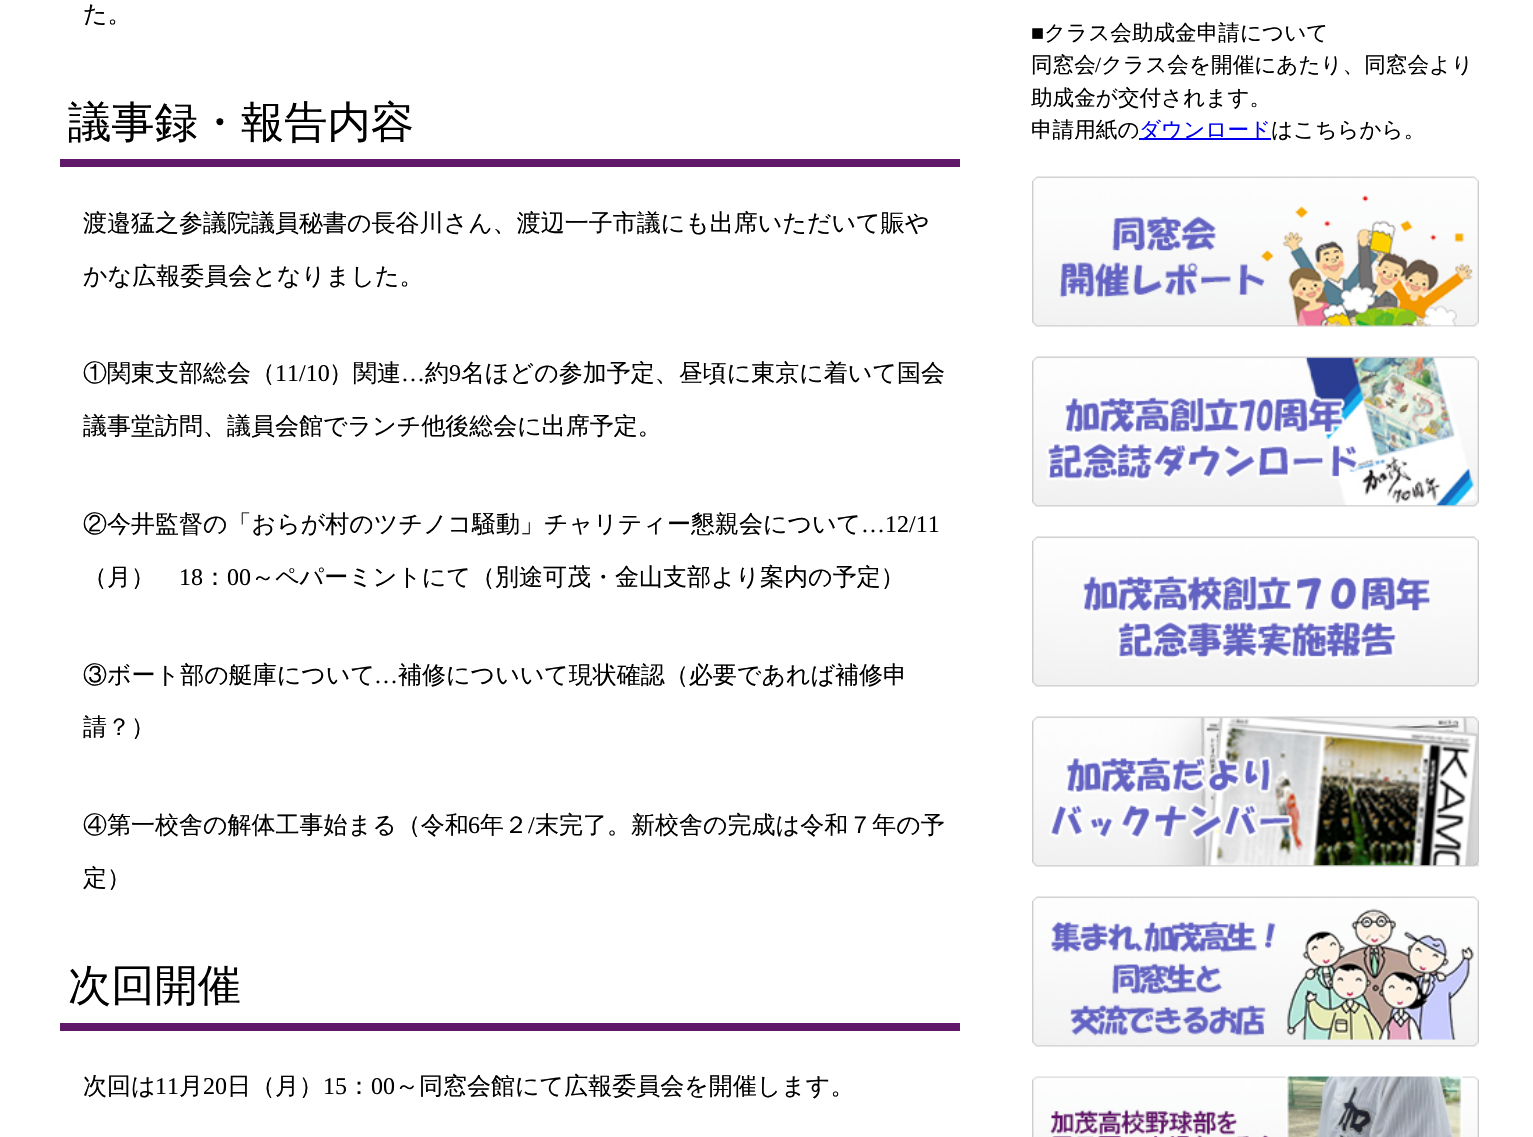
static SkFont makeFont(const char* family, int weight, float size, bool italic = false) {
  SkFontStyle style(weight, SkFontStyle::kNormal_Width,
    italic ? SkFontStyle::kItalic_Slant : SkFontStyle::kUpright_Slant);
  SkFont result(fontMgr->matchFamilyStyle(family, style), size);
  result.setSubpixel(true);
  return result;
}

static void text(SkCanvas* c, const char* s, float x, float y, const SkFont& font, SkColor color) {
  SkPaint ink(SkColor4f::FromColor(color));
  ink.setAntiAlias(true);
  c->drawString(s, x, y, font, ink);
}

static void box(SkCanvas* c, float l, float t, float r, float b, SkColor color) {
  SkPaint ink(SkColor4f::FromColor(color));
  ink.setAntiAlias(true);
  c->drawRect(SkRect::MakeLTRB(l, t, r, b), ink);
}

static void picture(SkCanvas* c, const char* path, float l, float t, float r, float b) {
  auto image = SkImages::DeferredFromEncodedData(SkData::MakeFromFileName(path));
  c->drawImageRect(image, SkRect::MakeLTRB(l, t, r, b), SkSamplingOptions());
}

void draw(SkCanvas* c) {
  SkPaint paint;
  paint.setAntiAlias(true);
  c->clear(0xffffffff);
  SkFont face1 = makeFont("WenQuanYi Zen Hei", 500, 24);
  text(c, "た。", 83, 22, face1, 0xff000000);
  box(c, 60, 159, 960, 167, 0xff601868);
  SkFont face2 = makeFont("WenQuanYi Zen Hei", 500, 43.25f);
  text(c, "議事録・報告内容", 68, 137, face2, 0xff000000);
  text(c, "渡邉猛之参議院議員秘書の長谷川さん、渡辺一子市議にも出席いただいて賑や", 83, 231, face1, 0xff000000);
  text(c, "かな広報委員会となりました。", 83, 284, face1, 0xff000000);
  text(c, "①関東支部総会（", 83, 381, face1, 0xff000000);
  SkFont face3 = makeFont("Liberation Serif", 400, 24);
  text(c, "11/10", 275, 381, face3, 0xff000000);
  text(c, "）関連", 329, 381, face1, 0xff000000);
  text(c, "…", 401, 381, face3, 0xff000000);
  text(c, "約", 425, 381, face1, 0xff000000);
  text(c, "9", 449, 381, face3, 0xff000000);
  text(c, "名ほどの参加予定、昼頃に東京に着いて国会", 461, 381, face1, 0xff000000);
  text(c, "議事堂訪問、議員会館でランチ他後総会に出席予定。", 83, 434, face1, 0xff000000);
  text(c, "②今井監督の「おらが村のツチノコ騒動」チャリティー懇親会について", 83, 532, face1, 0xff000000);
  text(c, "…12/11", 861, 532, face3, 0xff000000);
  text(c, "（月）", 83, 585, face1, 0xff000000);
  text(c, "18", 179, 585, face3, 0xff000000);
  text(c, "：", 203, 585, face1, 0xff000000);
  text(c, "00", 227, 585, face3, 0xff000000);
  text(c, "～ペパーミントにて（別途可茂・金山支部より案内の予定）", 251, 585, face1, 0xff000000);
  text(c, "③ボート部の艇庫について", 83, 683, face1, 0xff000000);
  text(c, "…", 374, 683, face3, 0xff000000);
  text(c, "補修についいて現状確認（必要であれば補修申", 398, 683, face1, 0xff000000);
  text(c, "請？）", 83, 735, face1, 0xff000000);
  text(c, "④第一校舎の解体工事始まる（令和", 83, 833, face1, 0xff000000);
  text(c, "6", 468, 833, face3, 0xff000000);
  text(c, "年２", 480, 833, face1, 0xff000000);
  text(c, "/", 528, 833, face3, 0xff000000);
  text(c, "末完了。新校舎の完成は令和７年の予", 535, 833, face1, 0xff000000);
  text(c, "定）", 83, 886, face1, 0xff000000);
  box(c, 60, 1023, 960, 1031, 0xff601868);
  text(c, "次回開催", 68, 1000, face2, 0xff000000);
  text(c, "次回は", 83, 1094, face1, 0xff000000);
  text(c, "11", 155, 1094, face3, 0xff000000);
  text(c, "月", 179, 1094, face1, 0xff000000);
  text(c, "20", 203, 1094, face3, 0xff000000);
  text(c, "日（月）", 227, 1094, face1, 0xff000000);
  text(c, "15", 323, 1094, face3, 0xff000000);
  text(c, "：", 347, 1094, face1, 0xff000000);
  text(c, "00", 371, 1094, face3, 0xff000000);
  text(c, "～同窓会館にて広報委員会を開催します。", 395, 1094, face1, 0xff000000);
  SkFont face4 = makeFont("Liberation Serif", 400, 21.6f);
  text(c, "■", 1031, 40, face4, 0xff000000);
  SkFont face5 = makeFont("WenQuanYi Zen Hei", 500, 21.6f);
  text(c, "クラス会助成金申請について", 1044, 40, face5, 0xff000000);
  text(c, "同窓会", 1031, 72, face5, 0xff000000);
  text(c, "/", 1095, 72, face4, 0xff000000);
  text(c, "クラス会を開催にあたり、同窓会より", 1101, 72, face5, 0xff000000);
  text(c, "助成金が交付されます。", 1031, 105, face5, 0xff000000);
  text(c, "申請用紙の", 1031, 137, face5, 0xff000000);
  box(c, 1139, 138, 1271, 140, 0xff0000ee);
  text(c, "ダウンロード", 1139, 137, face5, 0xff0000ee);
  text(c, "はこちらから。", 1271, 137, face5, 0xff000000);
  picture(c, "img_01.png", 1032, 176, 1479, 327);
  picture(c, "img_02.png", 1032, 356, 1479, 507);
  picture(c, "img_03.png", 1032, 536, 1479, 687);
  picture(c, "img_04.png", 1032, 716, 1479, 867);
  picture(c, "img_05.png", 1032, 896, 1479, 1047);
  picture(c, "img_06.png", 1032, 1076, 1479, 1137);
}
